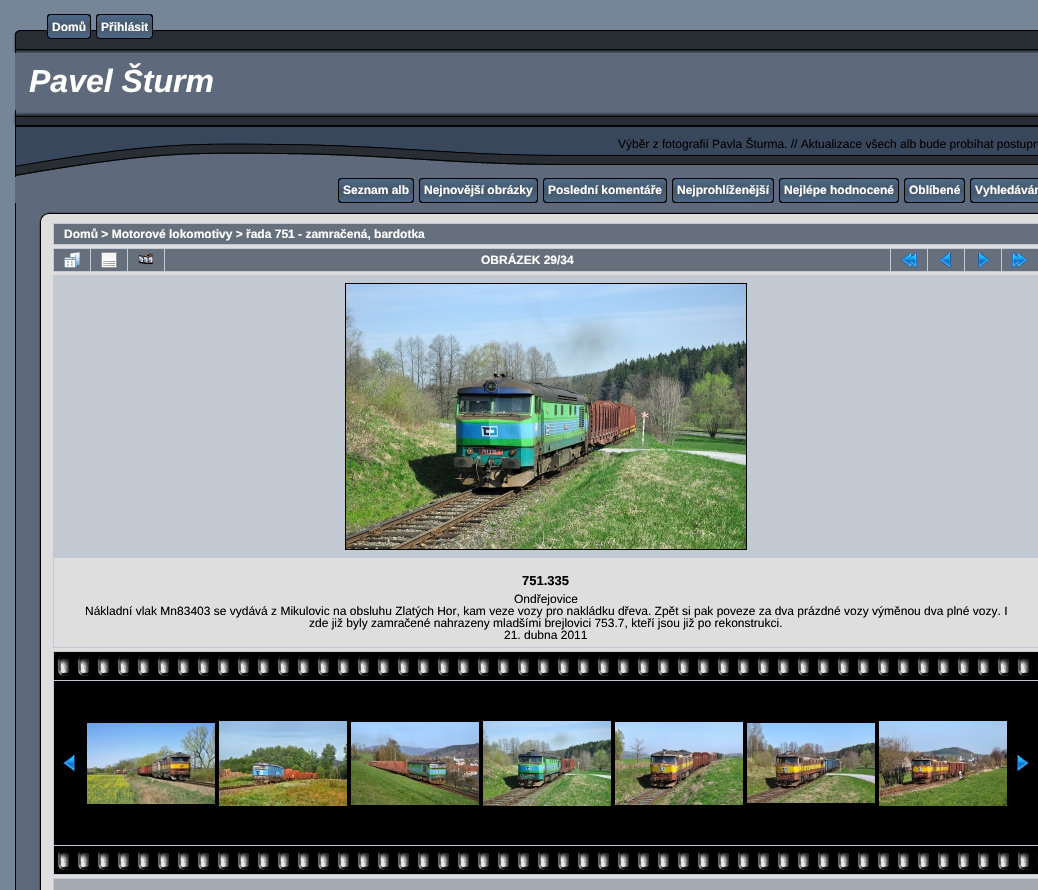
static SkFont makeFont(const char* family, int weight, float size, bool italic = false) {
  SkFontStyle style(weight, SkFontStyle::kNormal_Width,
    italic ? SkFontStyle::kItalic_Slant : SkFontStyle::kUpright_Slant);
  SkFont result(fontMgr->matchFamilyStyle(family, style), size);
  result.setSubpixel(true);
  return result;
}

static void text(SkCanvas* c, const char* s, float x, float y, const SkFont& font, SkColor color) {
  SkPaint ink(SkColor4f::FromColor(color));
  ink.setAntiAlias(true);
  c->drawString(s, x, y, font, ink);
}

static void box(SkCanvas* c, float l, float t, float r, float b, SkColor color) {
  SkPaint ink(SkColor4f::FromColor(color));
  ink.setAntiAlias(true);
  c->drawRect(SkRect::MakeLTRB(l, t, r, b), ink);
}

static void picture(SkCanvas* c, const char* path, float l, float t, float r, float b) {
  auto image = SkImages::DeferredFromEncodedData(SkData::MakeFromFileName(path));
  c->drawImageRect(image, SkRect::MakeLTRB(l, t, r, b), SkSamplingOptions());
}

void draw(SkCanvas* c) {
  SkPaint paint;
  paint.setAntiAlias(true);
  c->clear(0xff758698);
  picture(c, "img_01.png", 42, 30, 1038, 53);
  picture(c, "img_02.png", 47, 14, 52, 39);
  picture(c, "img_03.png", 52, 14, 86, 39);
  SkFont face1 = makeFont("Liberation Sans", 700, 12);
  text(c, "Domů", 52, 31, face1, 0xffffffff);
  picture(c, "img_04.png", 86, 14, 91, 39);
  picture(c, "img_02.png", 96, 14, 101, 39);
  picture(c, "img_05.png", 101, 14, 148, 39);
  text(c, "Přihlásit", 101, 31, face1, 0xffffffff);
  picture(c, "img_04.png", 148, 14, 153, 39);
  picture(c, "img_06.png", 13, 30, 42, 53);
  box(c, 15, 53, 1038, 110, 0xff5e697b);
  SkFont face2 = makeFont("Liberation Sans", 700, 32, true);
  text(c, "Pavel Šturm", 29, 92, face2, 0xffffffff);
  picture(c, "img_07.png", 13, 110, 560, 177);
  picture(c, "img_08.png", 560, 110, 1038, 177);
  SkFont face3 = makeFont("Liberation Sans", 400, 12);
  text(c, "Výběr z fotografií Pavla Šturma. // Aktualizace všech alb bude probíhat postupn", 618, 148, face3, 0xff000000);
  box(c, 15, 177, 1038, 203, 0xff5e697b);
  picture(c, "img_09.png", 338, 178, 343, 203);
  picture(c, "img_10.png", 343, 178, 409, 203);
  text(c, "Seznam alb", 343, 194, face1, 0xffffffff);
  picture(c, "img_11.png", 409, 178, 414, 203);
  picture(c, "img_09.png", 419, 178, 424, 203);
  picture(c, "img_12.png", 424, 178, 533, 203);
  text(c, "Nejnovější obrázky", 424, 194, face1, 0xffffffff);
  picture(c, "img_11.png", 533, 178, 538, 203);
  picture(c, "img_09.png", 543, 178, 548, 203);
  picture(c, "img_13.png", 548, 178, 662, 203);
  text(c, "Poslední komentáře", 548, 194, face1, 0xffffffff);
  picture(c, "img_11.png", 662, 178, 667, 203);
  picture(c, "img_09.png", 672, 178, 677, 203);
  picture(c, "img_14.png", 677, 178, 769, 203);
  text(c, "Nejprohlíženější", 677, 194, face1, 0xffffffff);
  picture(c, "img_11.png", 769, 178, 774, 203);
  picture(c, "img_09.png", 779, 178, 784, 203);
  picture(c, "img_15.png", 784, 178, 894, 203);
  text(c, "Nejlépe hodnocené", 784, 194, face1, 0xffffffff);
  picture(c, "img_11.png", 894, 178, 899, 203);
  picture(c, "img_09.png", 904, 178, 909, 203);
  picture(c, "img_16.png", 909, 178, 960, 203);
  text(c, "Oblíbené", 909, 194, face1, 0xffffffff);
  picture(c, "img_11.png", 960, 178, 965, 203);
  picture(c, "img_09.png", 970, 178, 975, 203);
  picture(c, "img_17.png", 975, 178, 1038, 203);
  text(c, "Vyhledáván", 975, 194, face1, 0xffffffff);
  picture(c, "img_18.png", 15, 203, 42, 221);
  picture(c, "img_19.png", 42, 203, 56, 221);
  picture(c, "img_20.png", 56, 203, 1036, 221);
  picture(c, "img_21.png", 1036, 203, 1038, 221);
  picture(c, "img_22.png", 15, 221, 42, 890);
  box(c, 42, 221, 1038, 890, 0xffdedede);
  box(c, 53, 223, 1038, 245, 0xffc2c9d3);
  box(c, 54, 224, 1038, 244, 0xff66707c);
  text(c, "Domů > Motorové lokomotivy > řada 751 - zamračená, bardotka", 64, 238, face1, 0xffffffff);
  box(c, 53, 248, 1038, 272, 0xffc2c9d3);
  box(c, 54, 249, 90, 271, 0xff66707c);
  picture(c, "img_23.png", 64, 252, 80, 268);
  box(c, 91, 249, 127, 271, 0xff66707c);
  picture(c, "img_24.png", 101, 252, 117, 268);
  box(c, 128, 249, 164, 271, 0xff66707c);
  picture(c, "img_25.png", 138, 253, 154, 265);
  box(c, 165, 249, 890, 271, 0xff66707c);
  text(c, "OBRÁZEK 29/34", 481, 264, face1, 0xffffffff);
  box(c, 891, 249, 927, 271, 0xff66707c);
  picture(c, "img_26.png", 901, 252, 917, 268);
  box(c, 928, 249, 964, 271, 0xff66707c);
  picture(c, "img_27.png", 939, 252, 951, 268);
  box(c, 965, 249, 1001, 271, 0xff66707c);
  picture(c, "img_28.png", 978, 252, 990, 268);
  box(c, 1002, 249, 1038, 271, 0xff66707c);
  picture(c, "img_29.png", 1012, 252, 1028, 268);
  box(c, 53, 275, 1038, 648, 0xffc2c9d3);
  paint.setStyle(SkPaint::kStroke_Style);
  paint.setStrokeWidth(1);
  paint.setColor(0xff000000);
  c->drawRect(SkRect::MakeLTRB(345.5f, 283.5f, 746.5f, 549.5f), paint);
  picture(c, "img_30.png", 346, 284, 746, 549);
  box(c, 54, 558, 1038, 647, 0xffdedede);
  SkFont face4 = makeFont("Liberation Sans", 700, 13);
  text(c, "751.335", 522, 585, face4, 0xff000000);
  text(c, "Ondřejovice", 514, 603, face3, 0xff000000);
  text(c, "Nákladní vlak Mn83403 se vydává z Mikulovic na obsluhu Zlatých Hor, kam veze vozy pro nakládku dřeva. Zpět si pak poveze za dva prázdné vozy výměnou dva plné vozy. I", 85, 615, face3, 0xff000000);
  text(c, "zde již byly zamračené nahrazeny mladšími brejlovici 753.7, kteří jsou již po rekonstrukci.", 309, 627, face3, 0xff000000);
  text(c, "21. dubna 2011", 504, 639, face3, 0xff000000);
  box(c, 53, 651, 1038, 875, 0xffc2c9d3);
  box(c, 54, 652, 1038, 680, 0xff000000);
  picture(c, "img_31.png", 57, 652, 1038, 676);
  box(c, 54, 681, 1038, 845, 0xff000000);
  picture(c, "img_32.png", 63, 755, 75, 771);
  picture(c, "img_33.png", 87, 723, 215, 804);
  picture(c, "img_34.png", 219, 721, 347, 806);
  picture(c, "img_35.png", 351, 722, 479, 805);
  picture(c, "img_36.png", 483, 721, 611, 806);
  picture(c, "img_37.png", 615, 722, 743, 805);
  picture(c, "img_38.png", 747, 723, 875, 803);
  picture(c, "img_39.png", 879, 721, 1007, 806);
  picture(c, "img_40.png", 1017, 755, 1029, 771);
  box(c, 54, 846, 1038, 874, 0xff000000);
  picture(c, "img_31.png", 57, 846, 1038, 870);
  box(c, 53, 878, 1038, 890, 0xffc2c9d3);
  box(c, 54, 879, 1038, 890, 0xffa3aab4);
}
